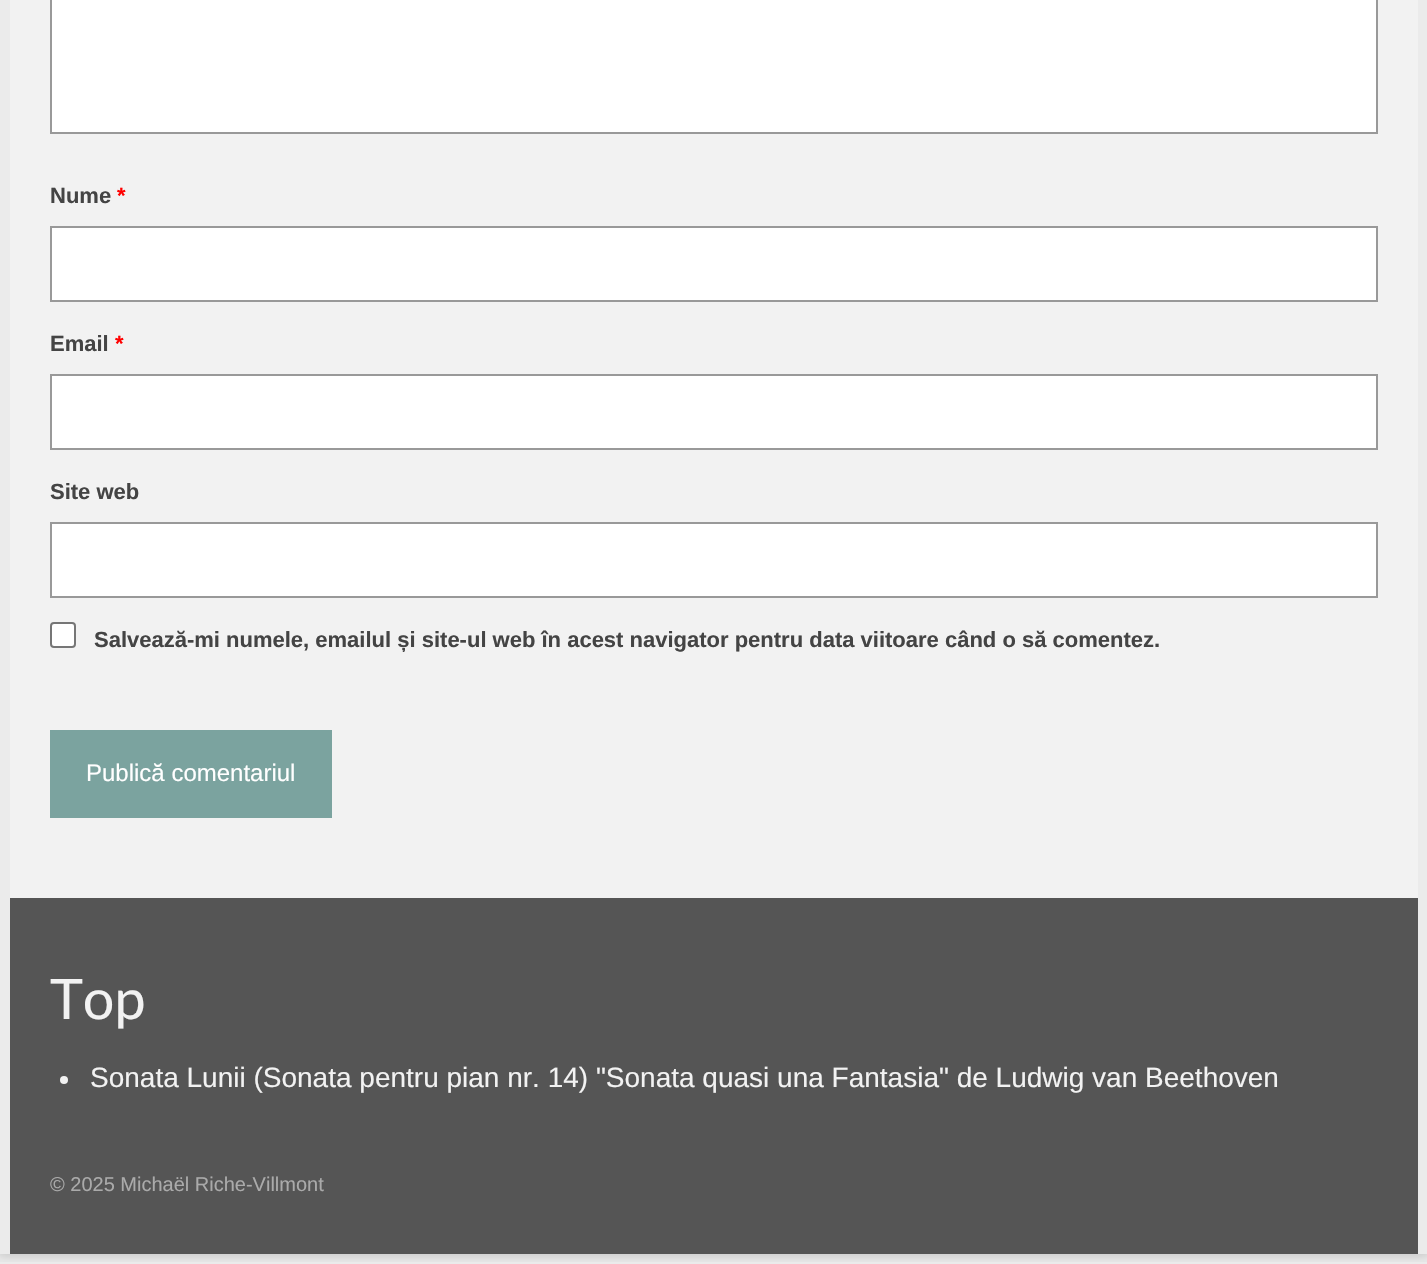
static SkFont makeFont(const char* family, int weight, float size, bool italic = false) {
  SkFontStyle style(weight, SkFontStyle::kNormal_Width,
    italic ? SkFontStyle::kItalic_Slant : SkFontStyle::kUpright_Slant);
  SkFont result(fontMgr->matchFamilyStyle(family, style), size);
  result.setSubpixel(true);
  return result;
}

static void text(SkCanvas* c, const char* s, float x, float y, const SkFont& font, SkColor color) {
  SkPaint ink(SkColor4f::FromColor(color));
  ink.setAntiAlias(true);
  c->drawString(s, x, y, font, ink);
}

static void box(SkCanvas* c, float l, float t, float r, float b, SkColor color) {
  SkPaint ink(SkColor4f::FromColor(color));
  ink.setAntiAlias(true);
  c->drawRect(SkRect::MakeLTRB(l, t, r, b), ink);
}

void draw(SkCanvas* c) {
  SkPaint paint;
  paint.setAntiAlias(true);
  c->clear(0xffebebeb);
  c->save();
  c->clipRect(SkRect::MakeLTRB(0, 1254, 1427, 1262));
  paint.setColor(0x29000000);
  paint.setMaskFilter(SkMaskFilter::MakeBlur(kNormal_SkBlurStyle, 5));
  c->drawRect(SkRect::MakeLTRB(-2, -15, 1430, 1256), paint);
  paint.setMaskFilter(nullptr);
  c->restore();
  box(c, 10, 0, 1418, 898, 0xfff2f2f2);
  paint.setColor(0xffffffff);
  c->drawRect(SkRect::MakeLTRB(51, -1, 1377, 133), paint);
  paint.setStyle(SkPaint::kStroke_Style);
  paint.setStrokeWidth(2);
  paint.setColor(0xff999999);
  c->drawRect(SkRect::MakeLTRB(51, -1, 1377, 133), paint);
  SkFont face1 = makeFont("Liberation Sans", 700, 22);
  text(c, "Nume", 50, 203, face1, 0xff444444);
  text(c, "*", 117, 203, face1, 0xffff0000);
  paint.setStyle(SkPaint::kFill_Style);
  paint.setColor(0xffffffff);
  c->drawRect(SkRect::MakeLTRB(51, 227, 1377, 301), paint);
  paint.setStyle(SkPaint::kStroke_Style);
  paint.setColor(0xff999999);
  c->drawRect(SkRect::MakeLTRB(51, 227, 1377, 301), paint);
  text(c, "Email", 50, 351, face1, 0xff444444);
  text(c, "*", 115, 351, face1, 0xffff0000);
  paint.setStyle(SkPaint::kFill_Style);
  paint.setColor(0xffffffff);
  c->drawRect(SkRect::MakeLTRB(51, 375, 1377, 449), paint);
  paint.setStyle(SkPaint::kStroke_Style);
  paint.setColor(0xff999999);
  c->drawRect(SkRect::MakeLTRB(51, 375, 1377, 449), paint);
  text(c, "Site web", 50, 499, face1, 0xff444444);
  paint.setStyle(SkPaint::kFill_Style);
  paint.setColor(0xffffffff);
  c->drawRect(SkRect::MakeLTRB(51, 523, 1377, 597), paint);
  paint.setStyle(SkPaint::kStroke_Style);
  paint.setColor(0xff999999);
  c->drawRect(SkRect::MakeLTRB(51, 523, 1377, 597), paint);
  paint.setStyle(SkPaint::kFill_Style);
  paint.setColor(0xffffffff);
  c->drawRoundRect(SkRect::MakeLTRB(51, 623, 75, 647), 3, 3, paint);
  paint.setStyle(SkPaint::kStroke_Style);
  paint.setColor(0xff767676);
  c->drawRoundRect(SkRect::MakeLTRB(51, 623, 75, 647), 3, 3, paint);
  text(c, "Salvează-mi numele, emailul și site-ul web în acest navigator pentru data viitoare când o să comentez.", 94, 647, face1, 0xff444444);
  box(c, 50, 730, 332, 818, 0xff7ba39f);
  SkFont face2 = makeFont("Liberation Sans", 400, 24);
  text(c, "Publică comentariul", 86, 781, face2, 0xffffffff);
  box(c, 10, 898, 1418, 1254, 0xff555555);
  SkFont face3 = makeFont("Lato", 400, 56);
  text(c, "Top", 50, 1019, face3, 0xfff2f2f2);
  paint.setStyle(SkPaint::kFill_Style);
  paint.setColor(0xfff2f2f2);
  c->drawCircle(64, 1080, 4, paint);
  SkFont face4 = makeFont("Liberation Sans", 400, 28);
  text(c, "Sonata Lunii (Sonata pentru pian nr. 14) \"Sonata quasi una Fantasia\" de Ludwig van Beethoven", 90, 1087, face4, 0xfff2f2f2);
  SkFont face5 = makeFont("Liberation Sans", 400, 20);
  text(c, "© 2025 Michaël Riche-Villmont", 50, 1191, face5, 0xffaaaaaa);
}
